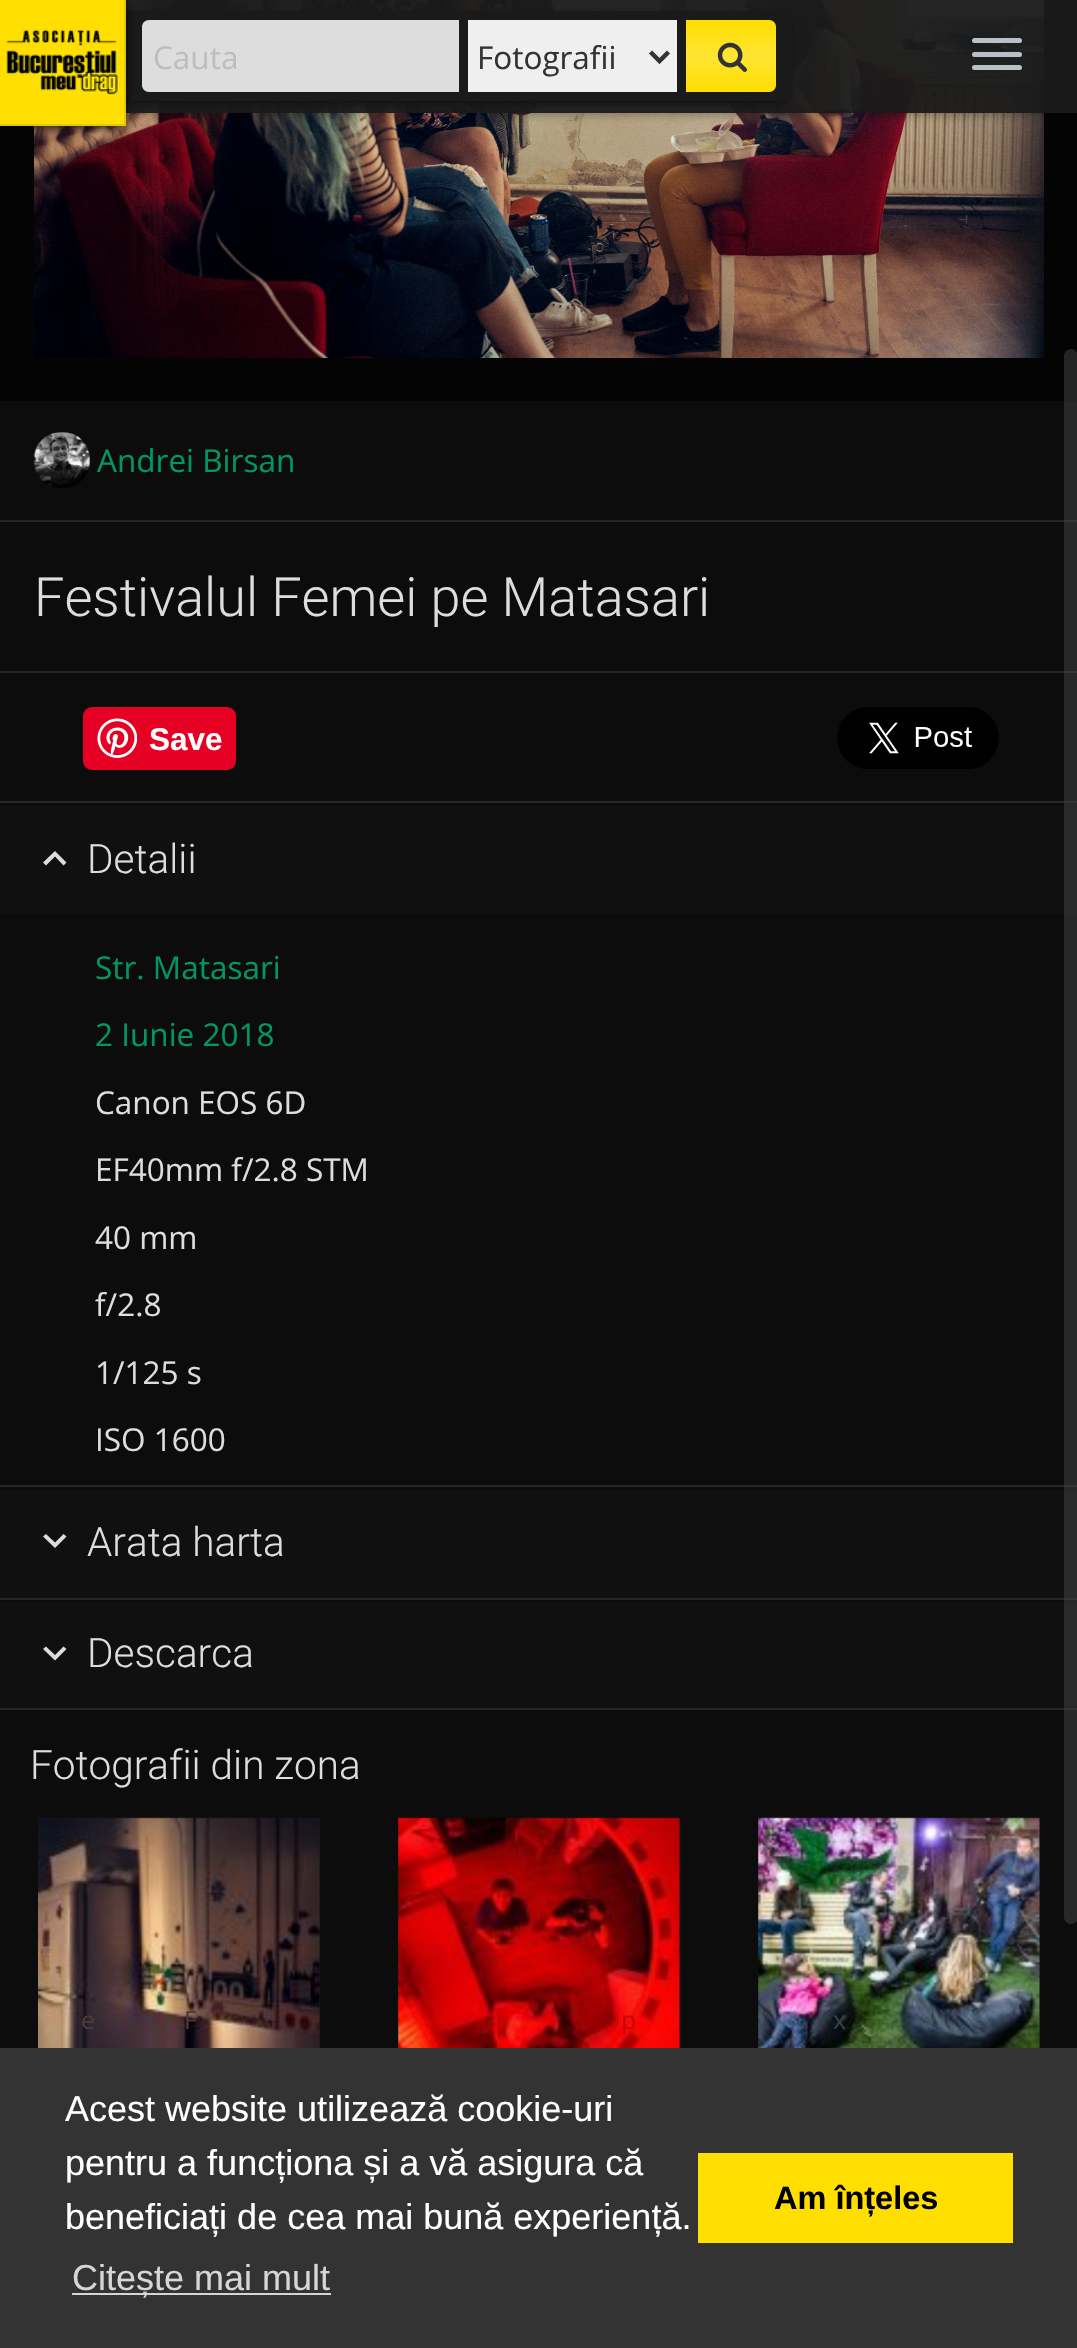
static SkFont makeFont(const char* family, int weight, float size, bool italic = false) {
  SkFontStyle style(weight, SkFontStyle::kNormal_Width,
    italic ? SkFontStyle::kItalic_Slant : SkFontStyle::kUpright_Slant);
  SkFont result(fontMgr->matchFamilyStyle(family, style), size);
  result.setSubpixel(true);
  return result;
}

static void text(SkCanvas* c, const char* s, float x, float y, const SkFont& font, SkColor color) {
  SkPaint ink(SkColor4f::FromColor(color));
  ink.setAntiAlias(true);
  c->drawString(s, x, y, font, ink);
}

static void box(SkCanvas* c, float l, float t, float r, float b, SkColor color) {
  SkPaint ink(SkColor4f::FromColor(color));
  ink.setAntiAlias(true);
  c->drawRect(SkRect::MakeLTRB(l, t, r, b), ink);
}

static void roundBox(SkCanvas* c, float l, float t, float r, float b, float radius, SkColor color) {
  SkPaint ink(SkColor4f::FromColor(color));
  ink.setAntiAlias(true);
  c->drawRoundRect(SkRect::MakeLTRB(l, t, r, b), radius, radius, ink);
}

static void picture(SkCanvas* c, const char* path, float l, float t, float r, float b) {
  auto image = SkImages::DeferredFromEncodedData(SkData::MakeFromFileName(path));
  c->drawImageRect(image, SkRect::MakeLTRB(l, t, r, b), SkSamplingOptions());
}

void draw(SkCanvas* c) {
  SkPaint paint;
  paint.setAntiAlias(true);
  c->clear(0xff0c0c0c);
  box(c, 0, 0, 1077, 401, 0xff040404);
  picture(c, "img_03.png", 34, 0, 1044, 358);
  c->save();
  c->clipPath(SkPathBuilder(SkPathFillType::kEvenOdd).moveTo(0, 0).lineTo(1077, 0).lineTo(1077, 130).lineTo(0, 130).close().moveTo(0, 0).lineTo(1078, 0).lineTo(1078, 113).lineTo(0, 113).close().detach(), true);
  paint.setColor(0x4d000000);
  paint.setMaskFilter(SkMaskFilter::MakeBlur(kNormal_SkBlurStyle, 4.5f));
  c->drawRect(SkRect::MakeLTRB(0, 2, 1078, 115), paint);
  paint.setMaskFilter(nullptr);
  c->restore();
  box(c, 126, 0, 1077, 113, 0xf2191919);
  c->save();
  c->clipPath(SkPathBuilder(SkPathFillType::kEvenOdd).moveTo(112, 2).lineTo(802, 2).lineTo(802, 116).lineTo(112, 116).close().moveTo(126, 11).lineTo(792, 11).lineTo(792, 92).cubicTo(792, 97, 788, 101, 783, 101).lineTo(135, 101).cubicTo(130, 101, 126, 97, 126, 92).close().detach(), true);
  paint.setColor(0xff111111);
  paint.setMaskFilter(SkMaskFilter::MakeBlur(kNormal_SkBlurStyle, 3.5f));
  c->drawRoundRect(SkRect::MakeLTRB(124, 14, 790, 104), 9, 9, paint);
  paint.setMaskFilter(nullptr);
  c->restore();
  paint.setColor(0xf2191919);
  c->drawPath(SkPathBuilder().moveTo(126, 11).lineTo(792, 11).lineTo(792, 92).cubicTo(792, 97, 788, 101, 783, 101).lineTo(135, 101).cubicTo(130, 101, 126, 97, 126, 92).close().detach(), paint);
  paint.setColor(0xcc000000);
  paint.setMaskFilter(SkMaskFilter::MakeBlur(kNormal_SkBlurStyle, 4.5f));
  c->drawRect(SkRect::MakeLTRB(0, 2, 126, 128), paint);
  paint.setMaskFilter(nullptr);
  box(c, 0, 0, 124, 124, 0xffffde00);
  picture(c, "img_01.png", 5, 29, 119, 96);
  box(c, 124, 0, 126, 126, 0xffe6c800);
  box(c, 0, 124, 126, 126, 0xffe6c800);
  paint.setColor(0xffdddddd);
  c->drawPath(SkPathBuilder().moveTo(149, 20).lineTo(459, 20).lineTo(459, 92).lineTo(149, 92).cubicTo(145, 92, 142, 89, 142, 85).lineTo(142, 27).cubicTo(142, 23, 145, 20, 149, 20).close().detach(), paint);
  SkFont face1 = makeFont("Open Sans", 400, 31.5f);
  text(c, "Cauta", 153, 69, face1, 0xffbdbdbd);
  box(c, 468, 20, 677, 92, 0xffefefef);
  paint.setStyle(SkPaint::kStroke_Style);
  paint.setStrokeWidth(4.5f);
  paint.setColor(0xff333333);
  c->drawPath(SkPathBuilder().moveTo(650.5f, 52).lineTo(659.5f, 61).lineTo(668.5f, 52).detach(), paint);
  text(c, "Fotografii", 477, 69, face1, 0xff333333);
  paint.setStyle(SkPaint::kFill_Style);
  {
    const SkColor colors[] = {0xffffde00, 0xffffe533, 0xffffde00};
    const float stops[] = {0, 0.5f, 1};
    const SkPoint ends[] = {{731, 20}, {731, 92}};
    paint.setShader(SkGradientShader::MakeLinear(ends, colors, stops, 3, SkTileMode::kClamp));
    paint.setAlpha(255);
  }
  c->drawPath(SkPathBuilder().moveTo(686, 20).lineTo(769, 20).cubicTo(773, 20, 776, 23, 776, 27).lineTo(776, 85).cubicTo(776, 89, 773, 92, 769, 92).lineTo(686, 92).close().detach(), paint);
  picture(c, "img_02.png", 717, 42, 747, 72);
  roundBox(c, 972, 38, 1022, 43, 2.5f, 0xffb9c1c7);
  roundBox(c, 972, 52, 1022, 57, 2.5f, 0xffb9c1c7);
  roundBox(c, 972, 65, 1022, 70, 2.5f, 0xffb9c1c7);
  picture(c, "img_04.png", 33, 432, 91, 488);
  text(c, "Andrei Birsan", 97, 472, face1, 0xff009666);
  box(c, 0, 520, 1077, 522, 0xff262626);
  SkFont face2 = makeFont("Roboto", 300, 54);
  text(c, "Festivalul Femei pe Matasari", 34, 616, face2, 0xffdddddd);
  box(c, 0, 671, 1077, 673, 0xff262626);
  roundBox(c, 83, 707, 236, 770, 9, 0xffe60023);
  picture(c, "img_05.png", 97, 718, 137, 758);
  SkFont face3 = makeFont("Liberation Sans", 700, 31.5f);
  text(c, "Save", 149, 750, face3, 0xffffffff);
  picture(c, "img_06.png", 837, 707, 999, 769);
  box(c, 0, 801, 1077, 803, 0xff262626);
  box(c, 0, 806, 1077, 914, 0xff101010);
  paint.setShader(nullptr);
  paint.setColor(0xffdddddd);
  c->drawPath(SkPathBuilder().moveTo(46, 865.5f).lineTo(43, 862.5f).lineTo(55, 851).lineTo(66.5f, 862.5f).lineTo(63.5f, 865.5f).lineTo(55, 856.5f).close().detach(), paint);
  SkFont face4 = makeFont("Roboto", 300, 40.5f);
  text(c, "Detalii", 87, 873, face4, 0xffdddddd);
  text(c, "Str. Matasari", 95, 979, face1, 0xff009666);
  text(c, "2 Iunie 2018", 95, 1046, face1, 0xff009666);
  text(c, "Canon EOS 6D", 95, 1114, face1, 0xffdddddd);
  text(c, "EF40mm f/2.8 STM", 95, 1181, face1, 0xffdddddd);
  text(c, "40 mm", 95, 1249, face1, 0xffdddddd);
  text(c, "f/2.8", 95, 1316, face1, 0xffdddddd);
  text(c, "1/125 s", 95, 1384, face1, 0xffdddddd);
  text(c, "ISO 1600", 95, 1451, face1, 0xffdddddd);
  box(c, 0, 1485, 1077, 1487, 0xff262626);
  box(c, 0, 1490, 1077, 1598, 0xff101010);
  c->drawPath(SkPathBuilder().moveTo(46, 1534).lineTo(55, 1542.5f).lineTo(63.5f, 1534).lineTo(66.5f, 1536.5f).lineTo(55, 1548).lineTo(43, 1536.5f).close().detach(), paint);
  text(c, "Arata harta", 87, 1556, face4, 0xffdddddd);
  box(c, 0, 1598, 1077, 1600, 0xff262626);
  box(c, 0, 1602, 1077, 1708, 0xff101010);
  c->drawPath(SkPathBuilder().moveTo(46, 1646.5f).lineTo(55, 1655).lineTo(63.5f, 1646.5f).lineTo(66.5f, 1649).lineTo(55, 1660.5f).lineTo(43, 1649).close().detach(), paint);
  text(c, "Descarca", 87, 1667, face4, 0xffdddddd);
  box(c, 0, 1708, 1077, 1710, 0xff262626);
  text(c, "Fotografii din zona", 30, 1779, face4, 0xffdddddd);
  box(c, 38, 1818, 320, 2048, 0xff181818);
  picture(c, "img_07.png", 38, 1817, 320, 2048);
  SkFont face5 = makeFont("Open Sans", 400, 25);
  text(c, "e", 81, 2029, face5, 0xff503938);
  text(c, "F", 184, 2029, face5, 0xff503938);
  box(c, 398, 1818, 680, 2048, 0xff181818);
  picture(c, "img_08.png", 398, 1817, 681, 2048);
  text(c, "p", 621, 2029, face5, 0xffc10505);
  box(c, 758, 1818, 1040, 2048, 0xff181818);
  picture(c, "img_09.png", 758, 1817, 1040, 2048);
  text(c, "x", 833, 2029, face5, 0xff35414a);
  roundBox(c, 1064, 349, 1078, 1924, 7, 0x82424242);
  box(c, 0, 2048, 1077, 2348, 0xff333333);
  SkFont face6 = makeFont("Liberation Sans", 400, 36);
  text(c, "Acest website utilizează cookie-uri", 65, 2121, face6, 0xffffffff);
  text(c, "pentru a funcționa și a vă asigura că", 65, 2175, face6, 0xffffffff);
  text(c, "beneficiați de cea mai bună experiență.", 65, 2229, face6, 0xffffffff);
  box(c, 72, 2293, 331, 2295, 0xffd6d6d6);
  text(c, "Citește mai mult", 72, 2290, face6, 0xffd6d6d6);
  box(c, 698, 2153, 1013, 2243, 0xffffde00);
  SkFont face7 = makeFont("Liberation Sans", 700, 32.5f);
  text(c, "Am înțeles", 774, 2209, face7, 0xff000000);
}
